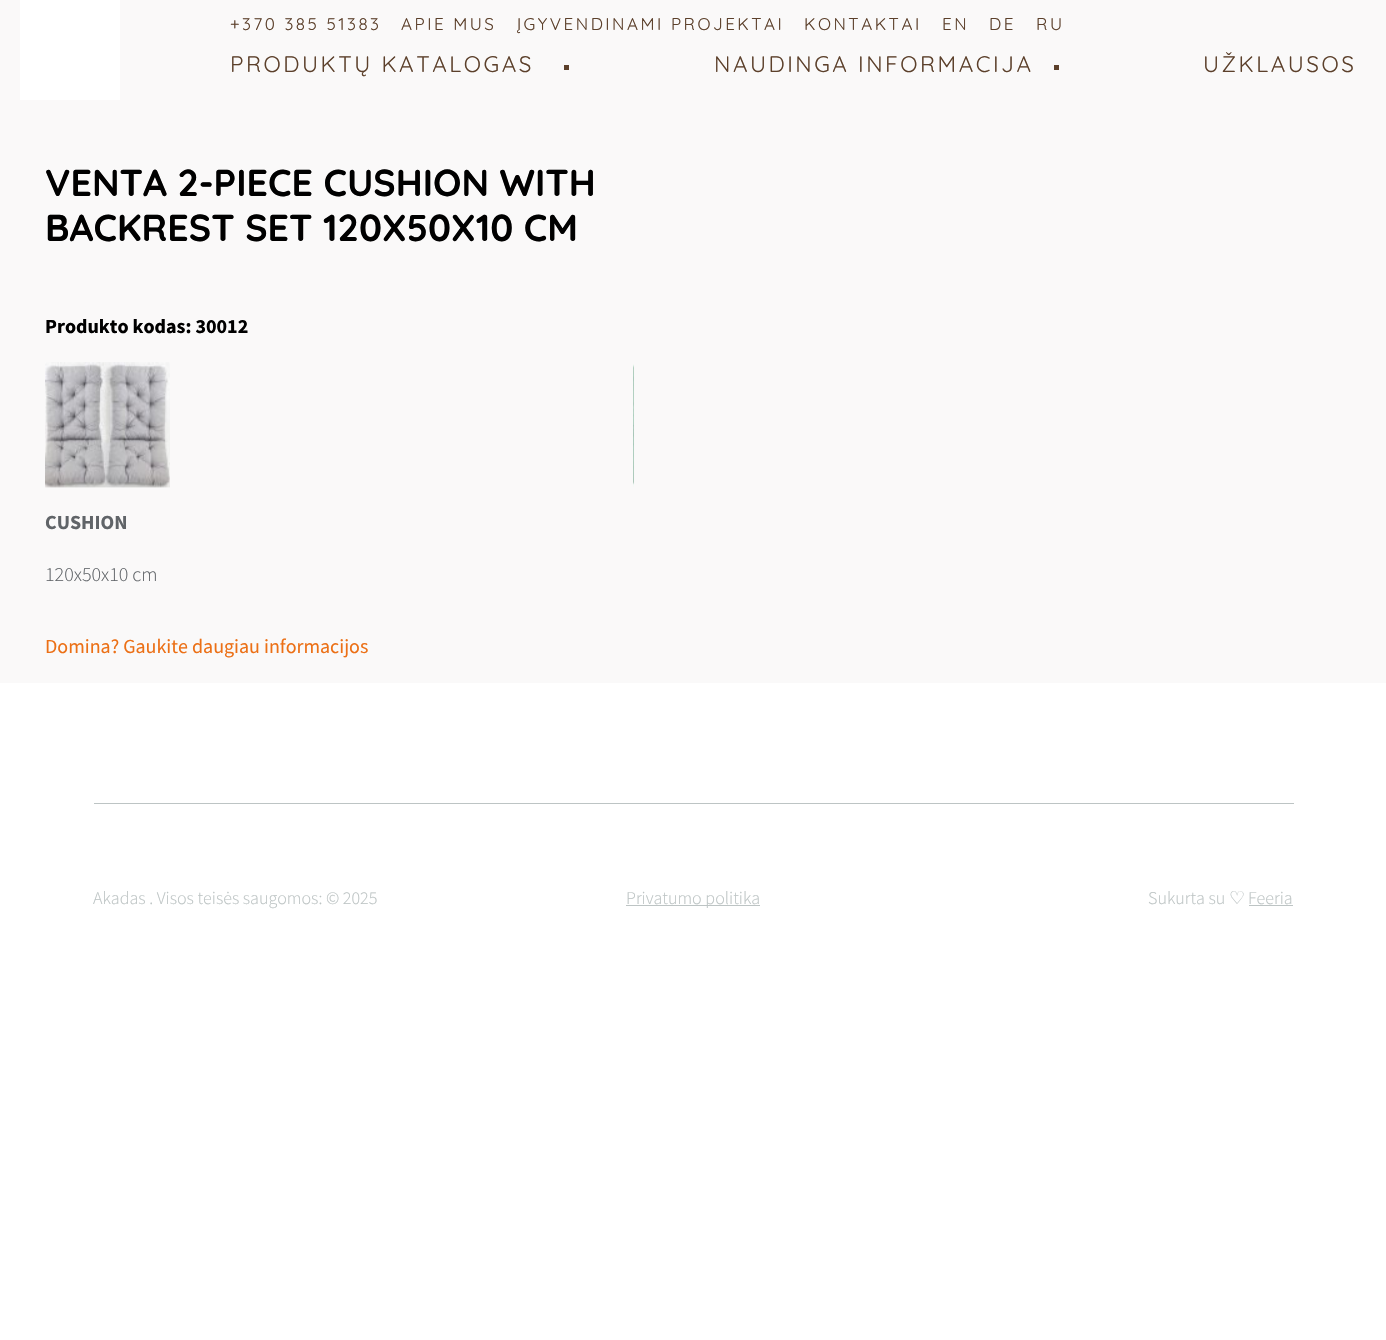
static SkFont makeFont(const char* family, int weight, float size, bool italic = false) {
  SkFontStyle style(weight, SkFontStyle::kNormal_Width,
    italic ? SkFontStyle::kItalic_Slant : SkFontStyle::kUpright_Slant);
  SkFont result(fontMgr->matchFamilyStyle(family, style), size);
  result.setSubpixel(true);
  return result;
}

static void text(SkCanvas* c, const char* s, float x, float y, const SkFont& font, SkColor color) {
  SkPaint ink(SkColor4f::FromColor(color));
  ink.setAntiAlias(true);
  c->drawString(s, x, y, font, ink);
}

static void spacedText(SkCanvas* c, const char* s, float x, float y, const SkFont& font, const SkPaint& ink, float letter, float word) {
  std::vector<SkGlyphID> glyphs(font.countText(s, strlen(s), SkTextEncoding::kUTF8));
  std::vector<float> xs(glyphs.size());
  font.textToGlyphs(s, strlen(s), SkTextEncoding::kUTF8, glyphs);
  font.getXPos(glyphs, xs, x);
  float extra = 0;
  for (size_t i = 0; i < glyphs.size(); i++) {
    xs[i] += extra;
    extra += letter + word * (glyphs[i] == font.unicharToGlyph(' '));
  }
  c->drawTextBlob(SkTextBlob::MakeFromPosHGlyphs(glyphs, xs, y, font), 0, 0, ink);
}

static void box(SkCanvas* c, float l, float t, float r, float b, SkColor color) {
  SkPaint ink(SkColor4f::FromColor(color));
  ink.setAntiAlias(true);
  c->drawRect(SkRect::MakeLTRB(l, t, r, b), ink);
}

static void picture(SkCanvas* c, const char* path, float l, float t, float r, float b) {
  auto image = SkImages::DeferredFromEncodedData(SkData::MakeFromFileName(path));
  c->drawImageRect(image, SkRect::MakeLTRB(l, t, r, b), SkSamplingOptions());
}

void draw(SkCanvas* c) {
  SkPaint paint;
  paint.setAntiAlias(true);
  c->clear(0xffffffff);
  box(c, 0, 0, 1386, 683, 0xfffaf9f9);
  box(c, 20, 0, 120, 100, 0xffffffff);
  SkFont face1 = makeFont("Quicksand", 400, 17);
  paint.setColor(0xff5c402b);
  spacedText(c, "+370 385 51383", 230, 30, face1, paint, 2.5f, 0);
  spacedText(c, "APIE MUS", 401, 30, face1, paint, 2.5f, 0);
  spacedText(c, "ĮGYVENDINAMI PROJEKTAI", 517, 30, face1, paint, 2.5f, 0);
  spacedText(c, "KONTAKTAI", 804, 30, face1, paint, 2.5f, 0);
  spacedText(c, "EN", 942, 30, face1, paint, 2.5f, 0);
  spacedText(c, "DE", 989, 30, face1, paint, 2.5f, 0);
  spacedText(c, "RU", 1036, 30, face1, paint, 2.5f, 0);
  SkFont face2 = makeFont("Quicksand", 400, 22.5f);
  spacedText(c, "PRODUKTŲ KATALOGAS", 230, 72, face2, paint, 2.5f, 0);
  box(c, 564, 65, 569, 70, 0xff5c402b);
  spacedText(c, "NAUDINGA INFORMACIJA", 714, 72, face2, paint, 2.5f, 0);
  box(c, 1054, 65, 1059, 70, 0xff5c402b);
  spacedText(c, "UŽKLAUSOS", 1203, 72, face2, paint, 2.5f, 0);
  SkFont face3 = makeFont("Quicksand", 700, 37.5f);
  text(c, "VENTA 2-PIECE CUSHION WITH", 45, 196, face3, 0xff000000);
  text(c, "BACKREST SET 120X50X10 CM", 45, 241, face3, 0xff000000);
  SkFont face4 = makeFont("Source Sans Pro", 700, 20);
  text(c, "Produkto kodas: 30012", 45, 333, face4, 0xff000000);
  picture(c, "img_01.png", 45, 362, 170, 488);
  picture(c, "img_02.png", 633, 364, 634, 487);
  text(c, "CUSHION", 45, 529, face4, 0xff606468);
  SkFont face5 = makeFont("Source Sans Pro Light", 300, 20);
  text(c, "120x50x10 cm", 45, 581, face5, 0xff606468);
  SkFont face6 = makeFont("Source Sans Pro", 400, 20);
  text(c, "Domina? Gaukite daugiau informacijos", 45, 653, face6, 0xffec7016);
  box(c, 94, 803, 1294, 804, 0xffbdc4c4);
  SkFont face7 = makeFont("Source Sans Pro Light", 300, 18);
  text(c, "Akadas . Visos teisės saugomos: © 2025", 93, 904, face7, 0xffbdc4c4);
  box(c, 626, 905, 760, 906, 0xffbdc4c4);
  text(c, "Privatumo politika", 626, 904, face7, 0xffbdc4c4);
  text(c, "Sukurta su", 1148, 904, face7, 0xffbdc4c4);
  SkFont face8 = makeFont("DejaVu Sans", 400, 18);
  text(c, "♡", 1229, 904, face8, 0xffbdc4c4);
  text(c, "Feeria", 1248, 904, face7, 0xffbdc4c4);
  box(c, 1249, 905, 1293, 906, 0xffbdc4c4);
}
